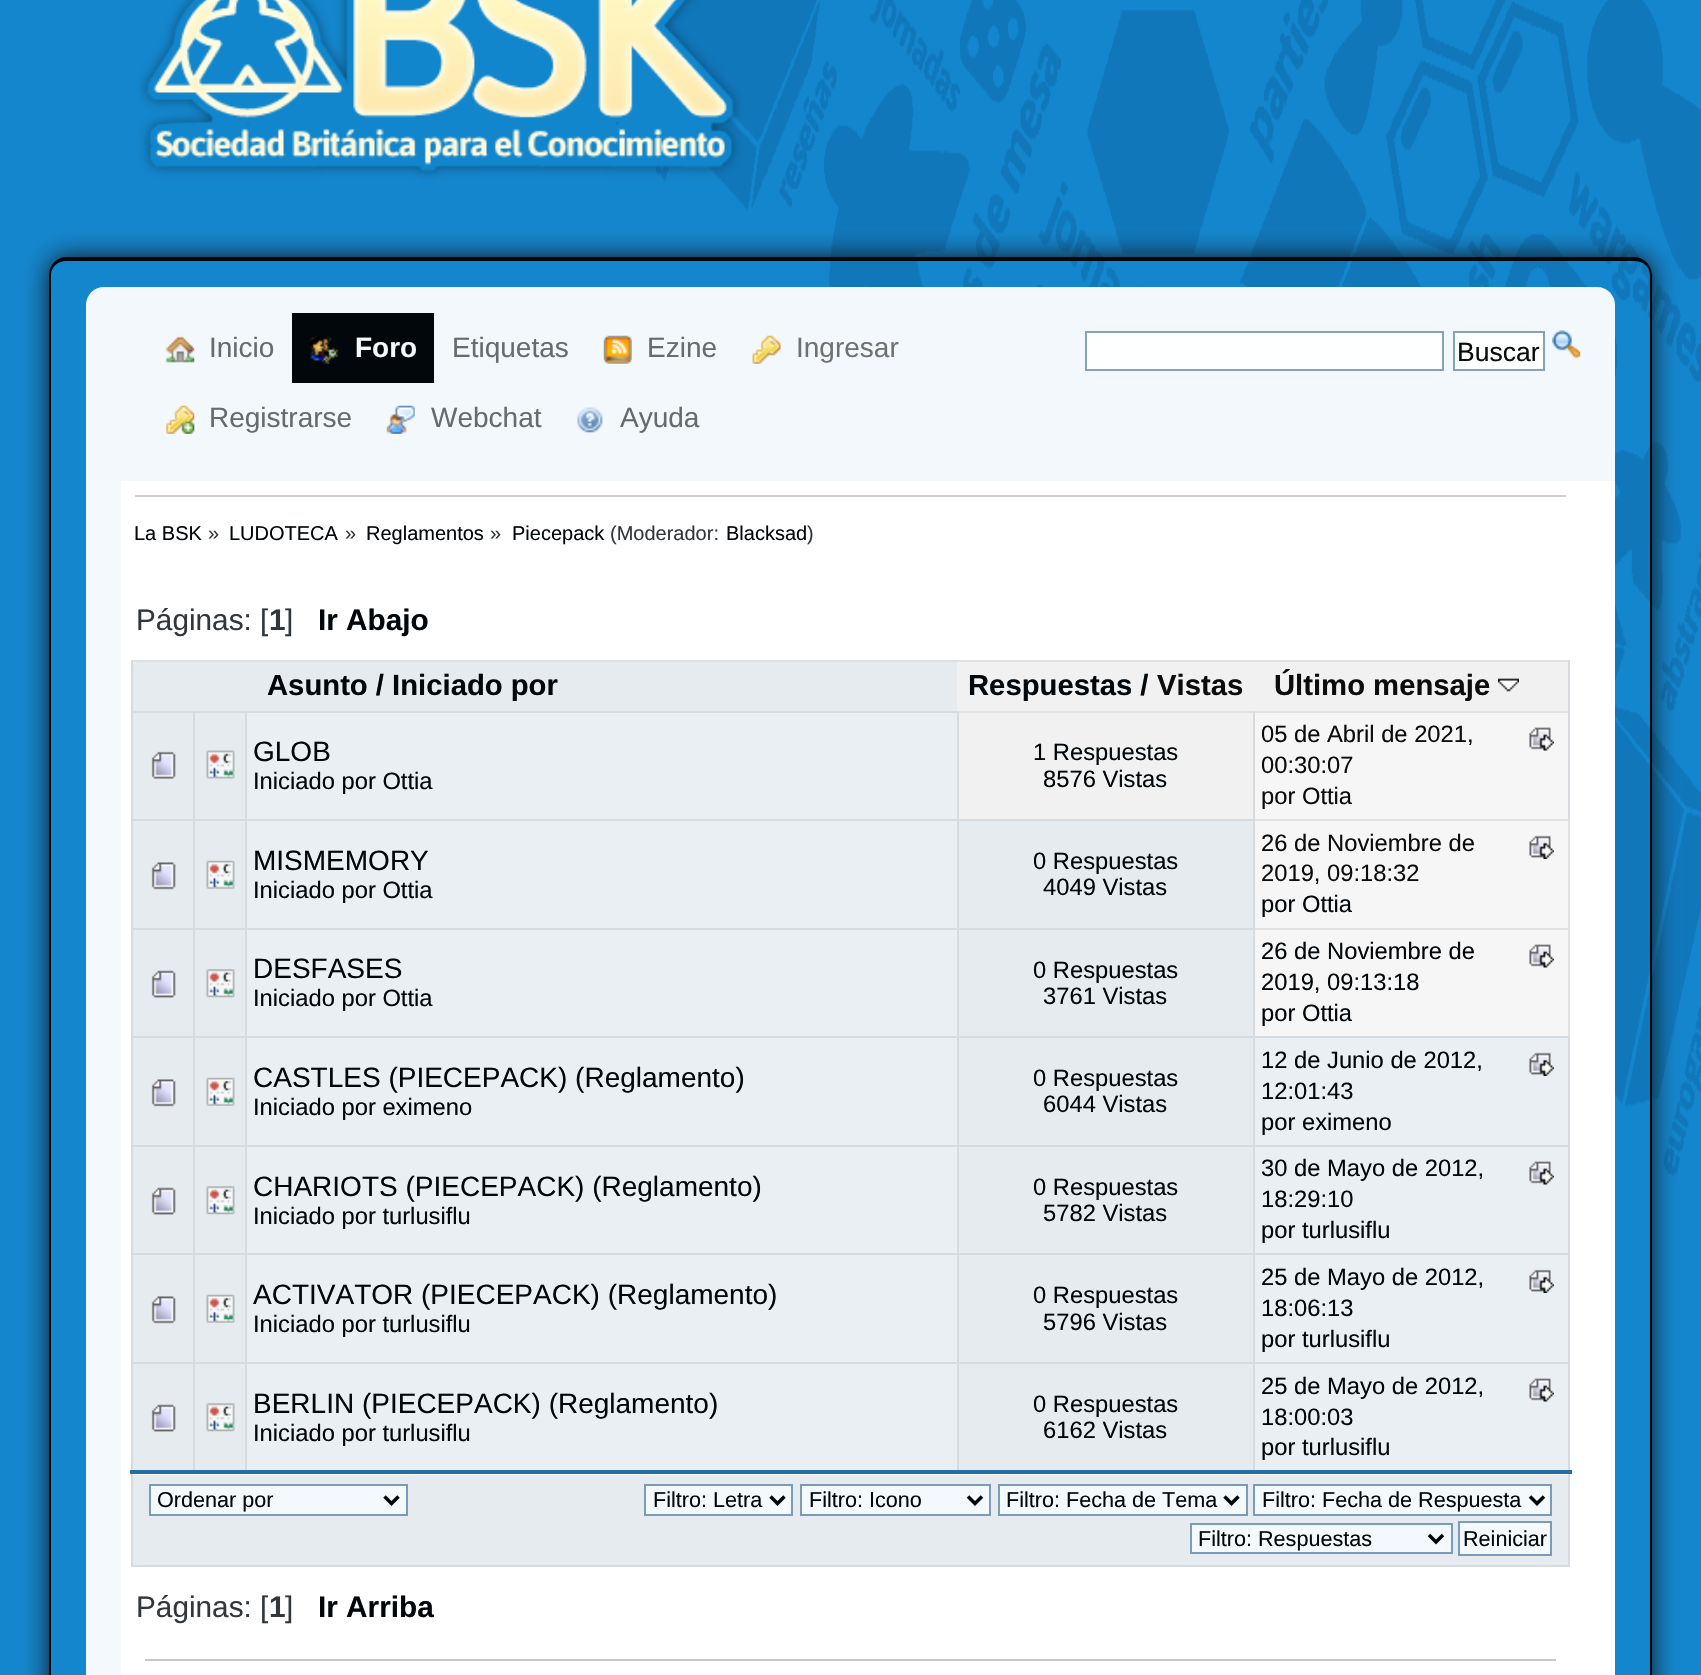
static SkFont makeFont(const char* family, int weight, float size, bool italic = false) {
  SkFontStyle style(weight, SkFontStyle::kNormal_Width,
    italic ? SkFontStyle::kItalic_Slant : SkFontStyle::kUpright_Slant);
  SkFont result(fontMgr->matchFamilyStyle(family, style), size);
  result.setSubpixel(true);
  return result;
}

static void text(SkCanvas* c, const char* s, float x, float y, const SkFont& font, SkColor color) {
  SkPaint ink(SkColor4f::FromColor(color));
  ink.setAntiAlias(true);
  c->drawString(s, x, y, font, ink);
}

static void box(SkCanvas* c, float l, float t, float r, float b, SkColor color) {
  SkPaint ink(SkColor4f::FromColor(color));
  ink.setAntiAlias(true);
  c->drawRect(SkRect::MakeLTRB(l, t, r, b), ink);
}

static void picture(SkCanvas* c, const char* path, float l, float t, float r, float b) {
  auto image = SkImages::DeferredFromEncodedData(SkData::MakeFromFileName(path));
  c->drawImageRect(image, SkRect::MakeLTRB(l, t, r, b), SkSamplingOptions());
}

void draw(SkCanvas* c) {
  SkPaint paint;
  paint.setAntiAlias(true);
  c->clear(0xffffffff);
  picture(c, "img_01.png", 0, 0, 1701, 1675);
  picture(c, "img_02.png", 139, 0, 742, 180);
  c->save();
  c->clipPath(SkPathBuilder(SkPathFillType::kEvenOdd).moveTo(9, 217).lineTo(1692, 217).lineTo(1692, 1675).lineTo(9, 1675).close().moveTo(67, 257).lineTo(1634, 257).cubicTo(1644, 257, 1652, 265, 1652, 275).lineTo(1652, 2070).lineTo(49, 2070).lineTo(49, 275).cubicTo(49, 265, 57, 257, 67, 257).close().detach(), true);
  paint.setColor(0xf2111111);
  paint.setMaskFilter(SkMaskFilter::MakeBlur(kNormal_SkBlurStyle, 13));
  c->drawRoundRect(SkRect::MakeLTRB(49, 257, 1652, 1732), 18, 18, paint);
  paint.setMaskFilter(nullptr);
  c->restore();
  paint.setColor(0xf2000000);
  c->drawPath(SkPathBuilder(SkPathFillType::kEvenOdd).moveTo(66, 257).lineTo(1634, 257).cubicTo(1644, 257, 1652, 265, 1652, 275).lineTo(1652, 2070).lineTo(49, 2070).lineTo(49, 275).cubicTo(49, 265, 57, 257, 66, 257).close().moveTo(66, 261).lineTo(1634, 261).cubicTo(1643, 261, 1650, 267, 1650, 275).lineTo(1650, 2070).lineTo(51, 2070).lineTo(51, 275).cubicTo(51, 267, 58, 261, 66, 261).close().detach(), paint);
  paint.setColor(0xf2fefefe);
  c->drawPath(SkPathBuilder().moveTo(104, 287).lineTo(1597, 287).cubicTo(1607, 287, 1615, 295, 1615, 305).lineTo(1615, 481).lineTo(86, 481).lineTo(86, 305).cubicTo(86, 295, 94, 287, 104, 287).close().detach(), paint);
  picture(c, "img_03.png", 166, 335, 195, 363);
  SkFont face1 = makeFont("Liberation Sans", 400, 28);
  text(c, "Inicio", 209, 357, face1, 0xff666b6f);
  box(c, 292, 313, 434, 383, 0xff01070a);
  picture(c, "img_04.png", 309, 336, 339, 364);
  SkFont face2 = makeFont("Liberation Sans", 700, 28);
  text(c, "Foro", 355, 357, face2, 0xfff3f9fd);
  text(c, "Etiquetas", 452, 357, face1, 0xff666b6f);
  picture(c, "img_05.png", 603, 335, 632, 364);
  text(c, "Ezine", 647, 357, face1, 0xff666b6f);
  picture(c, "img_06.png", 752, 335, 781, 364);
  text(c, "Ingresar", 796, 357, face1, 0xff717171);
  picture(c, "img_07.png", 166, 405, 195, 434);
  text(c, "Registrarse", 209, 427, face1, 0xff666b6f);
  picture(c, "img_08.png", 386, 405, 415, 434);
  text(c, "Webchat", 431, 427, face1, 0xff666b6f);
  picture(c, "img_09.png", 577, 407, 603, 433);
  text(c, "Ayuda", 620, 427, face1, 0xff666b6f);
  paint.setColor(0xfffeffff);
  c->drawRect(SkRect::MakeLTRB(1086, 332, 1443, 370), paint);
  paint.setStyle(SkPaint::kStroke_Style);
  paint.setStrokeWidth(2);
  paint.setColor(0xff85a2bd);
  c->drawRect(SkRect::MakeLTRB(1086, 332, 1443, 370), paint);
  paint.setStyle(SkPaint::kFill_Style);
  paint.setColor(0xfffeffff);
  c->drawRect(SkRect::MakeLTRB(1454, 332, 1544, 370), paint);
  paint.setStyle(SkPaint::kStroke_Style);
  paint.setColor(0xff85a2bd);
  c->drawRect(SkRect::MakeLTRB(1454, 332, 1544, 370), paint);
  SkFont face3 = makeFont("Liberation Sans", 400, 26.5f);
  text(c, "Buscar", 1457, 361, face3, 0xff0c0c0c);
  picture(c, "img_10.png", 1552, 330, 1581, 359);
  box(c, 86, 481, 121, 1675, 0xf2ffffff);
  box(c, 121, 481, 1615, 1675, 0xffffffff);
  box(c, 135, 495, 1566, 497, 0xffcfcfcf);
  SkFont face4 = makeFont("Liberation Sans", 400, 20);
  text(c, "La BSK", 134, 540, face4, 0xff01070a);
  text(c, "»", 208, 540, face4, 0xff31373b);
  text(c, "LUDOTECA", 229, 540, face4, 0xff01070a);
  text(c, "»", 345, 540, face4, 0xff31373b);
  text(c, "Reglamentos", 366, 540, face4, 0xff01070a);
  text(c, "»", 490, 540, face4, 0xff31373b);
  text(c, "Piecepack", 512, 540, face4, 0xff01070a);
  text(c, "(Moderador:", 610, 540, face4, 0xff31373b);
  text(c, "Blacksad", 726, 540, face4, 0xff01070a);
  text(c, ")", 807, 540, face4, 0xff31373b);
  SkFont face5 = makeFont("Liberation Sans", 400, 29.75f);
  text(c, "Páginas: [", 136, 630, face5, 0xff31373b);
  SkFont face6 = makeFont("Liberation Sans", 700, 29.75f);
  text(c, "1", 269, 630, face6, 0xff31373b);
  text(c, "]", 285, 630, face5, 0xff31373b);
  text(c, "Ir Abajo", 318, 630, face6, 0xff01070a);
  box(c, 959, 711, 1253, 819, 0xfff1f1f1);
  box(c, 1255, 711, 1568, 819, 0xfff6f6f6);
  box(c, 959, 711, 1570, 713, 0xf2ffffff);
  box(c, 957, 660, 1568, 711, 0xfff1f1f1);
  box(c, 133, 660, 957, 711, 0xffe5ebee);
  box(c, 131, 660, 1570, 662, 0xf2dfdfdf);
  box(c, 1568, 660, 1570, 712, 0xffd5dbde);
  box(c, 959, 711, 1570, 713, 0xf2dfdfdf);
  box(c, 131, 660, 133, 712, 0xffd5dbde);
  SkFont face7 = makeFont("Liberation Sans", 700, 29.25f);
  text(c, "Último mensaje", 1274, 695, face7, 0xff0c0c0c);
  picture(c, "img_11.png", 1498, 678, 1519, 692);
  text(c, "Asunto / Iniciado por", 267, 695, face7, 0xff01070a);
  text(c, "Respuestas /", 968, 695, face7, 0xff01070a);
  text(c, "Vistas", 1157, 695, face7, 0xff0c0c0c);
  box(c, 133, 713, 193, 819, 0xffe5ebee);
  box(c, 957, 711, 959, 713, 0xf2dfdfdf);
  box(c, 1253, 819, 1570, 821, 0xffe0e0e0);
  box(c, 1253, 928, 1570, 930, 0xffe0e0e0);
  box(c, 1255, 930, 1570, 1036, 0xfff6f6f6);
  box(c, 1253, 1145, 1570, 1147, 0xffd5dbde);
  box(c, 1253, 1253, 1570, 1255, 0xffd5dbde);
  box(c, 1253, 1362, 1570, 1364, 0xffd5dbde);
  box(c, 1568, 1472, 1570, 1566, 0xffd5dbde);
  box(c, 1568, 1362, 1570, 1474, 0xffd5dbde);
  box(c, 1568, 1253, 1570, 1363, 0xffd5dbde);
  box(c, 1568, 1036, 1570, 1255, 0xffd5dbde);
  box(c, 1568, 928, 1570, 1038, 0xf2dfdfdf);
  box(c, 1253, 1362, 1255, 1474, 0xffd5dbde);
  box(c, 957, 1362, 1255, 1364, 0xffd5dbde);
  box(c, 1253, 1253, 1255, 1363, 0xffd5dbde);
  box(c, 957, 1253, 1255, 1255, 0xffd5dbde);
  box(c, 1253, 1145, 1255, 1255, 0xffd5dbde);
  box(c, 957, 1145, 1255, 1147, 0xffd5dbde);
  box(c, 1253, 1036, 1255, 1146, 0xffd5dbde);
  box(c, 957, 1036, 1255, 1038, 0xffd5dbde);
  box(c, 1253, 1036, 1570, 1038, 0xffd5dbde);
  box(c, 1253, 928, 1255, 1038, 0xffd5dbde);
  box(c, 1253, 928, 1255, 930, 0xf2dfdfdf);
  box(c, 1253, 819, 1255, 929, 0xffd5dbde);
  box(c, 957, 819, 1255, 821, 0xffd5dbde);
  box(c, 957, 1362, 959, 1474, 0xffd5dbde);
  box(c, 245, 1362, 959, 1364, 0xffd5dbde);
  box(c, 957, 1253, 959, 1363, 0xffd5dbde);
  box(c, 245, 1253, 959, 1255, 0xffd5dbde);
  box(c, 957, 1145, 959, 1255, 0xffd5dbde);
  box(c, 245, 1145, 959, 1147, 0xffd5dbde);
  box(c, 957, 1036, 959, 1146, 0xffd5dbde);
  box(c, 245, 1036, 959, 1038, 0xffd5dbde);
  box(c, 957, 928, 959, 1038, 0xffd5dbde);
  box(c, 245, 928, 959, 930, 0xffd5dbde);
  box(c, 957, 928, 1255, 930, 0xffd5dbde);
  box(c, 957, 819, 959, 929, 0xffd5dbde);
  box(c, 245, 819, 959, 821, 0xffd5dbde);
  box(c, 957, 711, 959, 821, 0xffd5dbde);
  box(c, 245, 711, 959, 713, 0xffd5dbde);
  box(c, 245, 1362, 247, 1474, 0xffd5dbde);
  box(c, 193, 1362, 247, 1364, 0xffd5dbde);
  box(c, 245, 1253, 247, 1363, 0xffd5dbde);
  box(c, 193, 1253, 247, 1255, 0xffd5dbde);
  box(c, 245, 1145, 247, 1255, 0xffd5dbde);
  box(c, 193, 1145, 247, 1147, 0xffd5dbde);
  box(c, 245, 1036, 247, 1146, 0xffd5dbde);
  box(c, 193, 1036, 247, 1038, 0xffd5dbde);
  box(c, 245, 928, 247, 1038, 0xffd5dbde);
  box(c, 193, 928, 247, 930, 0xffd5dbde);
  box(c, 245, 819, 247, 929, 0xffd5dbde);
  box(c, 193, 819, 247, 821, 0xffd5dbde);
  box(c, 245, 711, 247, 821, 0xffd5dbde);
  box(c, 193, 711, 247, 713, 0xffd5dbde);
  box(c, 193, 1362, 195, 1474, 0xffd5dbde);
  box(c, 131, 1362, 194, 1364, 0xffd5dbde);
  box(c, 193, 1253, 195, 1363, 0xffd5dbde);
  box(c, 131, 1253, 194, 1255, 0xffd5dbde);
  box(c, 193, 1145, 195, 1255, 0xffd5dbde);
  box(c, 131, 1145, 194, 1147, 0xffd5dbde);
  box(c, 193, 1036, 195, 1146, 0xffd5dbde);
  box(c, 131, 1036, 194, 1038, 0xffd5dbde);
  box(c, 193, 928, 195, 1038, 0xffd5dbde);
  box(c, 131, 928, 194, 930, 0xffd5dbde);
  box(c, 193, 819, 195, 929, 0xffd5dbde);
  box(c, 131, 819, 194, 821, 0xffd5dbde);
  box(c, 193, 711, 195, 821, 0xffd5dbde);
  box(c, 131, 711, 194, 713, 0xffd5dbde);
  box(c, 131, 1565, 1570, 1567, 0xffd5dbde);
  box(c, 131, 1472, 133, 1566, 0xffd5dbde);
  box(c, 131, 1362, 133, 1474, 0xffd5dbde);
  box(c, 131, 1253, 133, 1363, 0xffd5dbde);
  box(c, 131, 1145, 133, 1255, 0xffd5dbde);
  box(c, 131, 1036, 133, 1146, 0xffd5dbde);
  box(c, 131, 928, 133, 1038, 0xffd5dbde);
  box(c, 131, 819, 133, 929, 0xffd5dbde);
  box(c, 131, 711, 133, 821, 0xffd5dbde);
  picture(c, "img_12.png", 151, 751, 176, 779);
  box(c, 195, 713, 245, 819, 0xffe5ebee);
  picture(c, "img_13.png", 206, 750, 235, 779);
  box(c, 247, 713, 957, 819, 0xffeaeff3);
  text(c, "GLOB", 253, 761, face1, 0xff01070a);
  SkFont face8 = makeFont("Liberation Sans", 400, 23.75f);
  text(c, "Iniciado por Ottia", 253, 789, face8, 0xff01070a);
  box(c, 1255, 821, 1570, 928, 0xfff6f6f6);
  box(c, 1568, 819, 1570, 929, 0xf2dfdfdf);
  box(c, 1568, 711, 1570, 821, 0xffd5dbde);
  box(c, 1253, 819, 1570, 821, 0xf2dfdfdf);
  box(c, 1253, 711, 1255, 821, 0xffd5dbde);
  text(c, "1 Respuestas", 1033, 760, face8, 0xff01070a);
  text(c, "8576 Vistas", 1043, 787, face8, 0xff01070a);
  text(c, "05 de Abril de 2021,", 1261, 742, face8, 0xff0c0c0c);
  picture(c, "img_14.png", 1529, 727, 1554, 751);
  text(c, "00:30:07", 1261, 773, face8, 0xff0c0c0c);
  text(c, "por Ottia", 1261, 804, face8, 0xff0c0c0c);
  box(c, 133, 821, 193, 928, 0xffe5ebee);
  picture(c, "img_15.png", 151, 862, 176, 890);
  box(c, 195, 821, 245, 928, 0xffe5ebee);
  picture(c, "img_16.png", 206, 860, 235, 889);
  box(c, 247, 821, 957, 928, 0xffeaeff3);
  text(c, "MISMEMORY", 253, 870, face1, 0xff01070a);
  text(c, "Iniciado por Ottia", 253, 898, face8, 0xff01070a);
  box(c, 959, 821, 1253, 928, 0xffe5ebee);
  text(c, "0 Respuestas", 1033, 869, face8, 0xff01070a);
  text(c, "4049 Vistas", 1043, 895, face8, 0xff01070a);
  text(c, "26 de Noviembre de", 1261, 851, face8, 0xff0c0c0c);
  picture(c, "img_17.png", 1529, 835, 1554, 859);
  text(c, "2019, 09:18:32", 1261, 881, face8, 0xff0c0c0c);
  text(c, "por Ottia", 1261, 912, face8, 0xff01070a);
  box(c, 133, 930, 193, 1036, 0xffe5ebee);
  picture(c, "img_18.png", 151, 970, 176, 998);
  box(c, 195, 930, 245, 1036, 0xffe5ebee);
  picture(c, "img_19.png", 206, 969, 235, 998);
  box(c, 247, 930, 957, 1036, 0xffeaeff3);
  text(c, "DESFASES", 253, 978, face1, 0xff01070a);
  text(c, "Iniciado por Ottia", 253, 1006, face8, 0xff01070a);
  box(c, 959, 930, 1253, 1036, 0xffe5ebee);
  text(c, "0 Respuestas", 1033, 978, face8, 0xff01070a);
  text(c, "3761 Vistas", 1043, 1004, face8, 0xff01070a);
  text(c, "26 de Noviembre de", 1261, 959, face8, 0xff01070a);
  picture(c, "img_14.png", 1529, 944, 1554, 968);
  text(c, "2019, 09:13:18", 1261, 990, face8, 0xff01070a);
  text(c, "por Ottia", 1261, 1021, face8, 0xff01070a);
  box(c, 133, 1038, 193, 1145, 0xffe5ebee);
  picture(c, "img_15.png", 151, 1079, 176, 1107);
  box(c, 195, 1038, 245, 1145, 0xffe5ebee);
  picture(c, "img_16.png", 206, 1077, 235, 1106);
  box(c, 247, 1038, 957, 1145, 0xffeaeff3);
  text(c, "CASTLES (PIECEPACK) (Reglamento)", 253, 1087, face1, 0xff01070a);
  text(c, "Iniciado por eximeno", 253, 1115, face8, 0xff01070a);
  box(c, 959, 1038, 1253, 1145, 0xffe5ebee);
  text(c, "0 Respuestas", 1033, 1086, face8, 0xff01070a);
  text(c, "6044 Vistas", 1043, 1112, face8, 0xff01070a);
  box(c, 1255, 1038, 1568, 1145, 0xffeaeff3);
  text(c, "12 de Junio de 2012,", 1261, 1068, face8, 0xff01070a);
  picture(c, "img_20.png", 1529, 1052, 1554, 1076);
  text(c, "12:01:43", 1261, 1099, face8, 0xff01070a);
  text(c, "por eximeno", 1261, 1130, face8, 0xff01070a);
  box(c, 133, 1147, 193, 1253, 0xffe5ebee);
  picture(c, "img_18.png", 151, 1187, 176, 1215);
  box(c, 195, 1147, 245, 1253, 0xffe5ebee);
  picture(c, "img_19.png", 206, 1186, 235, 1215);
  box(c, 247, 1147, 957, 1253, 0xffeaeff3);
  text(c, "CHARIOTS (PIECEPACK) (Reglamento)", 253, 1196, face1, 0xff01070a);
  text(c, "Iniciado por turlusiflu", 253, 1224, face8, 0xff01070a);
  box(c, 959, 1147, 1253, 1253, 0xffe5ebee);
  text(c, "0 Respuestas", 1033, 1195, face8, 0xff01070a);
  text(c, "5782 Vistas", 1043, 1221, face8, 0xff01070a);
  box(c, 1255, 1147, 1568, 1253, 0xffeaeff3);
  text(c, "30 de Mayo de 2012,", 1261, 1176, face8, 0xff01070a);
  picture(c, "img_21.png", 1529, 1161, 1554, 1185);
  text(c, "18:29:10", 1261, 1207, face8, 0xff01070a);
  text(c, "por turlusiflu", 1261, 1238, face8, 0xff01070a);
  box(c, 133, 1255, 193, 1362, 0xffe5ebee);
  picture(c, "img_15.png", 151, 1296, 176, 1324);
  box(c, 195, 1255, 245, 1362, 0xffe5ebee);
  picture(c, "img_16.png", 206, 1294, 235, 1323);
  box(c, 247, 1255, 957, 1362, 0xffeaeff3);
  text(c, "ACTIVATOR (PIECEPACK) (Reglamento)", 253, 1304, face1, 0xff01070a);
  text(c, "Iniciado por turlusiflu", 253, 1332, face8, 0xff01070a);
  box(c, 959, 1255, 1253, 1362, 0xffe5ebee);
  text(c, "0 Respuestas", 1033, 1303, face8, 0xff01070a);
  text(c, "5796 Vistas", 1043, 1330, face8, 0xff01070a);
  box(c, 1255, 1255, 1568, 1362, 0xffeaeff3);
  text(c, "25 de Mayo de 2012,", 1261, 1285, face8, 0xff01070a);
  picture(c, "img_20.png", 1529, 1269, 1554, 1293);
  text(c, "18:06:13", 1261, 1316, face8, 0xff01070a);
  text(c, "por turlusiflu", 1261, 1347, face8, 0xff01070a);
  box(c, 133, 1364, 193, 1470, 0xffe5ebee);
  picture(c, "img_18.png", 151, 1404, 176, 1432);
  box(c, 195, 1364, 245, 1470, 0xffe5ebee);
  picture(c, "img_19.png", 206, 1403, 235, 1432);
  box(c, 247, 1364, 957, 1470, 0xffeaeff3);
  text(c, "BERLIN (PIECEPACK) (Reglamento)", 253, 1413, face1, 0xff01070a);
  text(c, "Iniciado por turlusiflu", 253, 1441, face8, 0xff01070a);
  box(c, 959, 1364, 1253, 1470, 0xffe5ebee);
  text(c, "0 Respuestas", 1033, 1412, face8, 0xff01070a);
  text(c, "6162 Vistas", 1043, 1438, face8, 0xff01070a);
  box(c, 1255, 1364, 1568, 1470, 0xffeaeff3);
  text(c, "25 de Mayo de 2012,", 1261, 1394, face8, 0xff01070a);
  picture(c, "img_21.png", 1529, 1378, 1554, 1402);
  text(c, "18:00:03", 1261, 1425, face8, 0xff01070a);
  text(c, "por turlusiflu", 1261, 1455, face8, 0xff01070a);
  box(c, 133, 1475, 1568, 1565, 0xffe5ebee);
  box(c, 130, 1470, 1572, 1474, 0xff2470a6);
  paint.setStyle(SkPaint::kFill_Style);
  paint.setColor(0xfff3f9fd);
  c->drawRect(SkRect::MakeLTRB(150, 1485, 407, 1515), paint);
  paint.setStyle(SkPaint::kStroke_Style);
  paint.setColor(0xff7a9cba);
  c->drawRect(SkRect::MakeLTRB(150, 1485, 407, 1515), paint);
  paint.setStrokeWidth(3.5f);
  paint.setColor(0xff01070a);
  c->drawPath(SkPathBuilder().moveTo(384.5f, 1496.5f).lineTo(391.5f, 1503.5f).lineTo(398.5f, 1496.5f).detach(), paint);
  SkFont face9 = makeFont("Liberation Sans", 400, 21.6f);
  text(c, "Ordenar por", 157, 1507, face9, 0xff01070a);
  paint.setStyle(SkPaint::kFill_Style);
  paint.setColor(0xfff3f9fd);
  c->drawRect(SkRect::MakeLTRB(645, 1485, 792, 1515), paint);
  paint.setStyle(SkPaint::kStroke_Style);
  paint.setStrokeWidth(2);
  paint.setColor(0xff7a9cba);
  c->drawRect(SkRect::MakeLTRB(645, 1485, 792, 1515), paint);
  paint.setStrokeWidth(3.5f);
  paint.setColor(0xff01070a);
  c->drawPath(SkPathBuilder().moveTo(770.5f, 1496.5f).lineTo(777.5f, 1503.5f).lineTo(784.5f, 1496.5f).detach(), paint);
  text(c, "Filtro: Letra", 653, 1507, face9, 0xff01070a);
  paint.setStyle(SkPaint::kFill_Style);
  paint.setColor(0xfff3f9fd);
  c->drawRect(SkRect::MakeLTRB(801, 1485, 990, 1515), paint);
  paint.setStyle(SkPaint::kStroke_Style);
  paint.setStrokeWidth(2);
  paint.setColor(0xff7a9cba);
  c->drawRect(SkRect::MakeLTRB(801, 1485, 990, 1515), paint);
  paint.setStrokeWidth(3.5f);
  paint.setColor(0xff01070a);
  c->drawPath(SkPathBuilder().moveTo(968, 1496.5f).lineTo(975, 1503.5f).lineTo(982, 1496.5f).detach(), paint);
  text(c, "Filtro: Icono", 809, 1507, face9, 0xff01070a);
  paint.setStyle(SkPaint::kFill_Style);
  paint.setColor(0xfff3f9fd);
  c->drawRect(SkRect::MakeLTRB(999, 1485, 1247, 1515), paint);
  paint.setStyle(SkPaint::kStroke_Style);
  paint.setStrokeWidth(2);
  paint.setColor(0xff7a9cba);
  c->drawRect(SkRect::MakeLTRB(999, 1485, 1247, 1515), paint);
  paint.setStrokeWidth(3.5f);
  paint.setColor(0xff01070a);
  c->drawPath(SkPathBuilder().moveTo(1224.5f, 1496.5f).lineTo(1231.5f, 1503.5f).lineTo(1238.5f, 1496.5f).detach(), paint);
  text(c, "Filtro: Fecha de Tema", 1006, 1507, face9, 0xff01070a);
  paint.setStyle(SkPaint::kFill_Style);
  paint.setColor(0xfff3f9fd);
  c->drawRect(SkRect::MakeLTRB(1254, 1485, 1551, 1515), paint);
  paint.setStyle(SkPaint::kStroke_Style);
  paint.setStrokeWidth(2);
  paint.setColor(0xff7a9cba);
  c->drawRect(SkRect::MakeLTRB(1254, 1485, 1551, 1515), paint);
  paint.setStrokeWidth(3.5f);
  paint.setColor(0xff01070a);
  c->drawPath(SkPathBuilder().moveTo(1530, 1496.5f).lineTo(1537, 1503.5f).lineTo(1544, 1496.5f).detach(), paint);
  text(c, "Filtro: Fecha de Respuesta", 1262, 1507, face9, 0xff01070a);
  paint.setStyle(SkPaint::kFill_Style);
  paint.setColor(0xfff3f9fd);
  c->drawRect(SkRect::MakeLTRB(1191, 1524, 1452, 1553), paint);
  paint.setStyle(SkPaint::kStroke_Style);
  paint.setStrokeWidth(2);
  paint.setColor(0xff7a9cba);
  c->drawRect(SkRect::MakeLTRB(1191, 1524, 1452, 1553), paint);
  paint.setStrokeWidth(3.5f);
  paint.setColor(0xff01070a);
  c->drawPath(SkPathBuilder().moveTo(1429, 1535).lineTo(1436, 1542).lineTo(1443, 1535).detach(), paint);
  text(c, "Filtro: Respuestas", 1198, 1546, face9, 0xff01070a);
  paint.setStyle(SkPaint::kFill_Style);
  paint.setColor(0xfff3f9fd);
  c->drawRect(SkRect::MakeLTRB(1459, 1522, 1551, 1555), paint);
  paint.setStyle(SkPaint::kStroke_Style);
  paint.setStrokeWidth(2);
  paint.setColor(0xff7a9cba);
  c->drawRect(SkRect::MakeLTRB(1459, 1522, 1551, 1555), paint);
  text(c, "Reiniciar", 1463, 1546, face9, 0xff01070a);
  text(c, "Páginas: [", 136, 1617, face5, 0xff31373b);
  text(c, "1", 269, 1617, face6, 0xff31373b);
  text(c, "]", 285, 1617, face5, 0xff31373b);
  text(c, "Ir Arriba", 318, 1617, face6, 0xff01070a);
  box(c, 145, 1659, 1556, 1661, 0xffc3c9cc);
}
